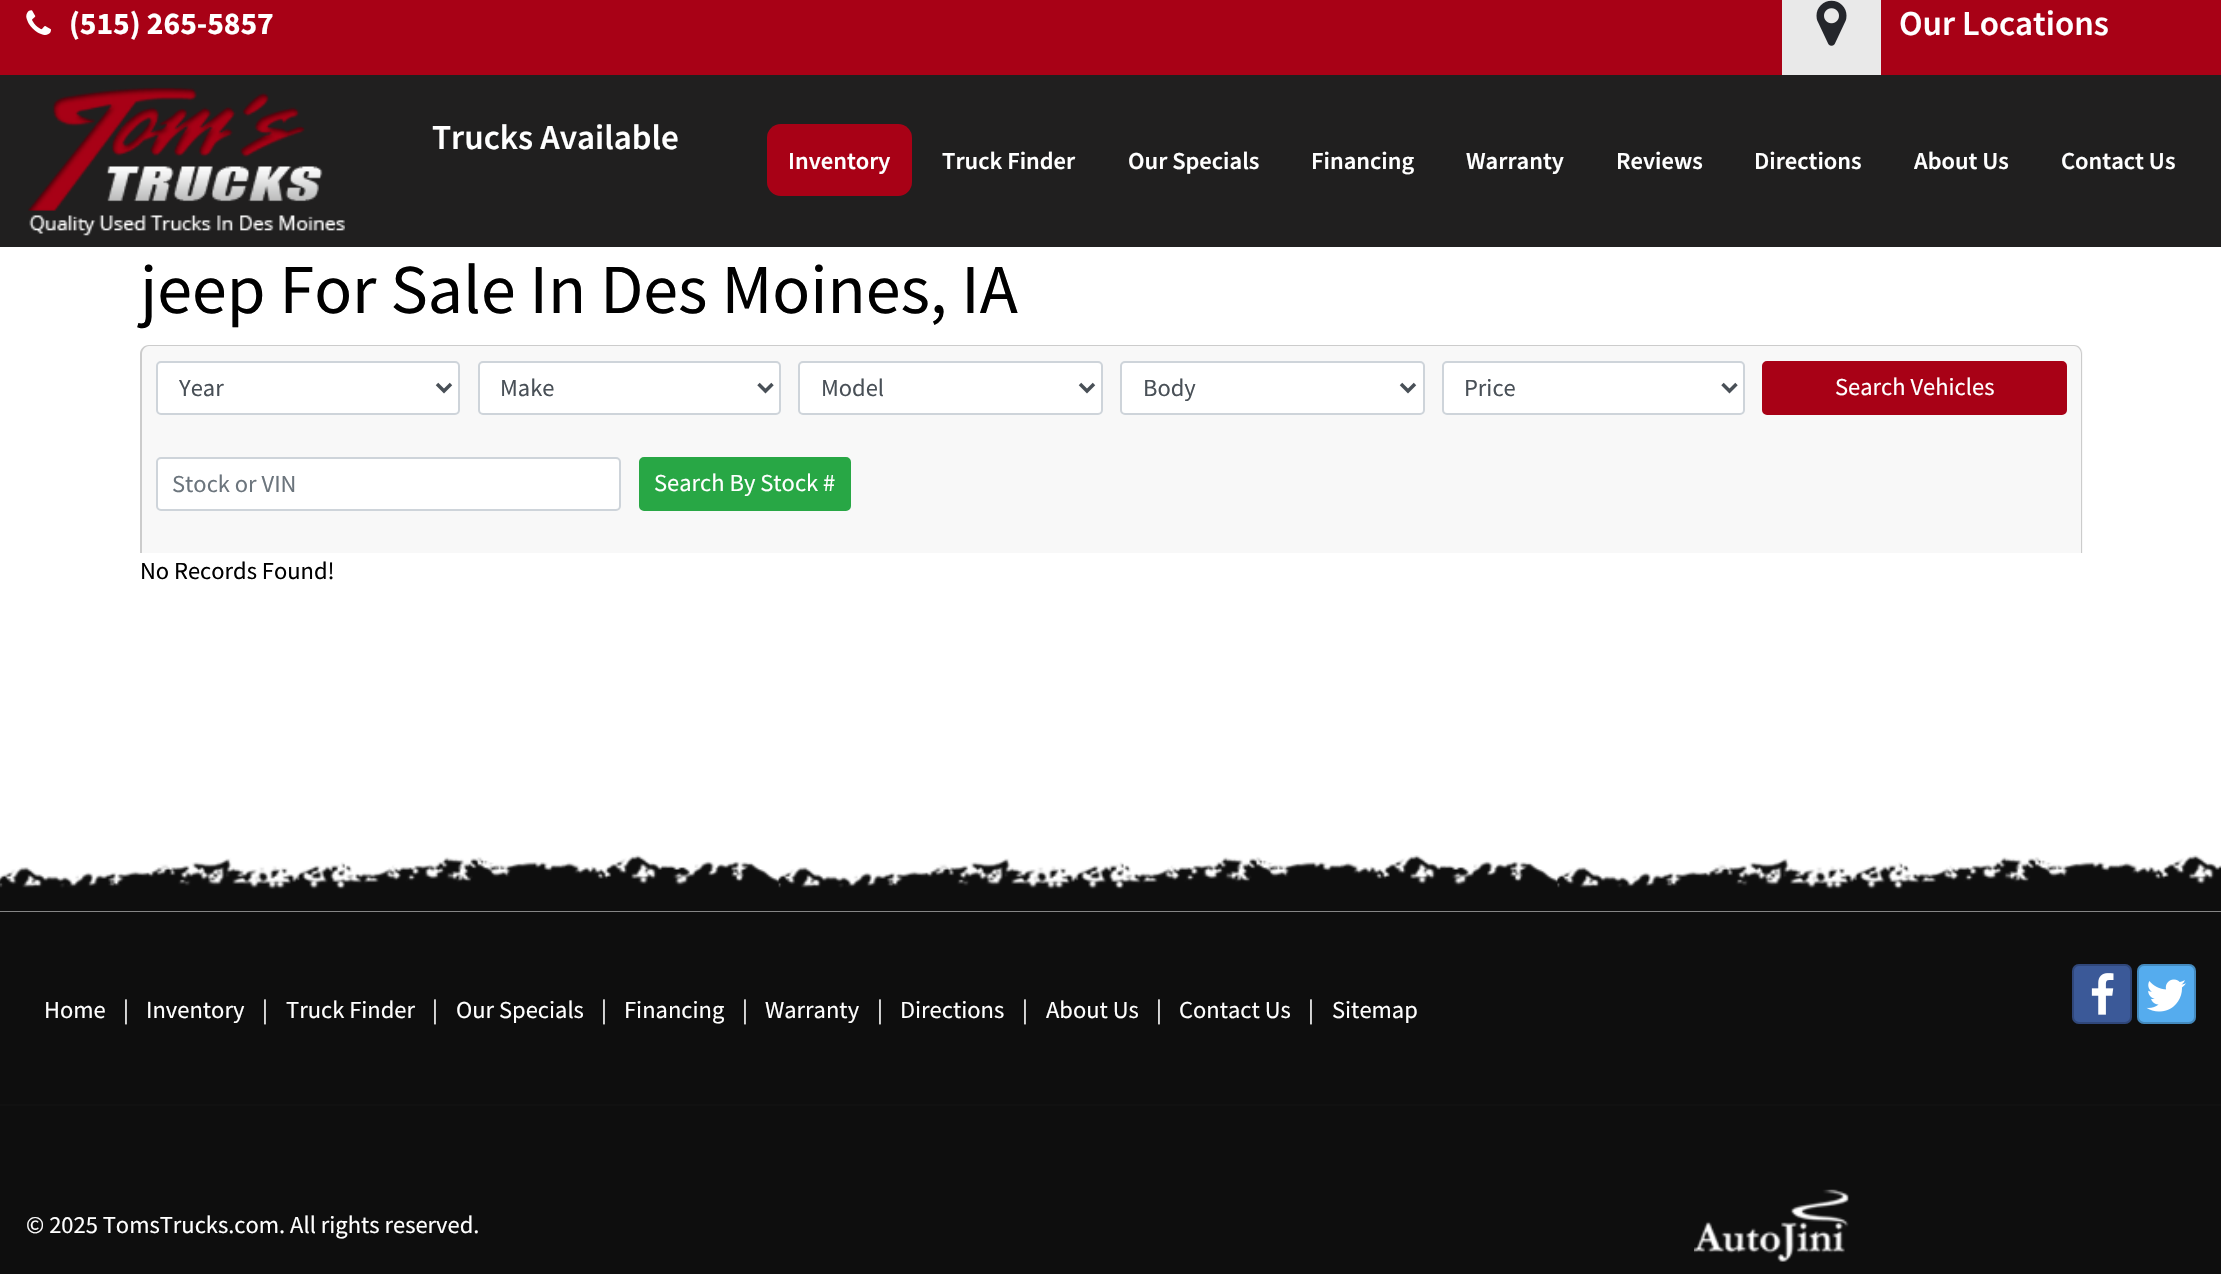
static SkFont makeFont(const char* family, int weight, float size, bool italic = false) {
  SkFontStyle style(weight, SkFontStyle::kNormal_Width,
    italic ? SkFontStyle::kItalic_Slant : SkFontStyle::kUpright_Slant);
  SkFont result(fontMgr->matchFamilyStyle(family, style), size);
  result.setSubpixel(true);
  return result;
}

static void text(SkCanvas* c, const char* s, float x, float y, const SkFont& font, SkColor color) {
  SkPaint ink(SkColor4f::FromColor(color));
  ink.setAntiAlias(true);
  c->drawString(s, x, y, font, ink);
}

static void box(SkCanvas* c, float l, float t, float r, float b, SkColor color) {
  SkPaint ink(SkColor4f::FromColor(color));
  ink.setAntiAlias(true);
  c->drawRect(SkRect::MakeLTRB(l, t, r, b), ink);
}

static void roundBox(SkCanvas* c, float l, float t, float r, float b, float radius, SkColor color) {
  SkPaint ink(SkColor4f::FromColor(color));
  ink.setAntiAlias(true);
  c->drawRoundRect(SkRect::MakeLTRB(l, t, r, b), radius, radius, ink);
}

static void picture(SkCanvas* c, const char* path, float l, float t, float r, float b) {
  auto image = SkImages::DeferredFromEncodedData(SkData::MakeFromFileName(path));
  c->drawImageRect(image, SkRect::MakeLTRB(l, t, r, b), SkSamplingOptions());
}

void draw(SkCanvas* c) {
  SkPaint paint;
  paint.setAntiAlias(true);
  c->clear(0xffffffff);
  box(c, 0, 0, 2221, 75, 0xffa80116);
  picture(c, "img_01.png", 26, 10, 51, 35);
  SkFont face1 = makeFont("Source Sans Pro", 700, 31.5f);
  text(c, "(515) 265-5857", 69, 34, face1, 0xffffffff);
  box(c, 1782, 0, 1881, 75, 0xffe9e9e9);
  picture(c, "img_02.png", 1816, 0, 1847, 46);
  SkFont face2 = makeFont("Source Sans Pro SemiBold", 600, 35);
  text(c, "Our Locations", 1899, 35, face2, 0xffffffff);
  box(c, 0, 75, 2221, 247, 0xff201f1f);
  picture(c, "img_03.png", 28, 87, 345, 236);
  text(c, "Trucks Available", 432, 149, face2, 0xffffffff);
  roundBox(c, 767, 124, 912, 196, 14, 0xffa80116);
  SkFont face3 = makeFont("Source Sans Pro SemiBold", 600, 24.5f);
  text(c, "Inventory", 788, 169, face3, 0xffffffff);
  text(c, "Truck Finder", 942, 169, face3, 0xffffffff);
  text(c, "Our Specials", 1128, 169, face3, 0xffffffff);
  text(c, "Financing", 1311, 169, face3, 0xffffffff);
  text(c, "Warranty", 1466, 169, face3, 0xffffffff);
  text(c, "Reviews", 1616, 169, face3, 0xffffffff);
  text(c, "Directions", 1754, 169, face3, 0xffffffff);
  text(c, "About Us", 1914, 169, face3, 0xffffffff);
  text(c, "Contact Us", 2061, 169, face3, 0xffffffff);
  SkFont face4 = makeFont("Source Sans Pro", 400, 70);
  text(c, "jeep For Sale In Des Moines, IA", 140, 313, face4, 0xff000000);
  paint.setColor(0xfff8f8f8);
  c->drawPath(SkPathBuilder().moveTo(149, 345).lineTo(2074, 345).cubicTo(2079, 345, 2083, 349, 2083, 354).lineTo(2083, 553).lineTo(140, 553).lineTo(140, 354).cubicTo(140, 349, 144, 345, 149, 345).close().detach(), paint);
  paint.setColor(0xffcccccc);
  c->drawPath(SkPathBuilder(SkPathFillType::kEvenOdd).moveTo(149, 345).lineTo(2074, 345).cubicTo(2079, 345, 2082, 349, 2082, 354).lineTo(2082, 553).lineTo(140, 553).lineTo(140, 354).cubicTo(140, 349, 144, 345, 149, 345).close().moveTo(149, 346).lineTo(2074, 346).cubicTo(2078, 346, 2081, 350, 2081, 354).lineTo(2081, 553).lineTo(142, 553).lineTo(142, 354).cubicTo(142, 350, 145, 346, 149, 346).close().detach(), paint);
  paint.setColor(0xffffffff);
  c->drawRoundRect(SkRect::MakeLTRB(157, 362, 459, 414), 4, 4, paint);
  paint.setStyle(SkPaint::kStroke_Style);
  paint.setStrokeWidth(2);
  paint.setColor(0xffced4da);
  c->drawRoundRect(SkRect::MakeLTRB(157, 362, 459, 414), 4, 4, paint);
  paint.setStrokeWidth(3.5f);
  paint.setColor(0xff495057);
  c->drawPath(SkPathBuilder().moveTo(437, 384).lineTo(444, 391).lineTo(451, 384).detach(), paint);
  SkFont face5 = makeFont("Source Sans Pro", 400, 24.5f);
  text(c, "Year", 179, 396, face5, 0xff495057);
  paint.setStyle(SkPaint::kFill_Style);
  paint.setColor(0xffffffff);
  c->drawRoundRect(SkRect::MakeLTRB(479, 362, 780, 414), 4, 4, paint);
  paint.setStyle(SkPaint::kStroke_Style);
  paint.setStrokeWidth(2);
  paint.setColor(0xffced4da);
  c->drawRoundRect(SkRect::MakeLTRB(479, 362, 780, 414), 4, 4, paint);
  paint.setStrokeWidth(3.5f);
  paint.setColor(0xff495057);
  c->drawPath(SkPathBuilder().moveTo(758.5f, 384).lineTo(765.5f, 391).lineTo(772.5f, 384).detach(), paint);
  text(c, "Make", 500, 396, face5, 0xff495057);
  paint.setStyle(SkPaint::kFill_Style);
  paint.setColor(0xffffffff);
  c->drawRoundRect(SkRect::MakeLTRB(799, 362, 1102, 414), 4, 4, paint);
  paint.setStyle(SkPaint::kStroke_Style);
  paint.setStrokeWidth(2);
  paint.setColor(0xffced4da);
  c->drawRoundRect(SkRect::MakeLTRB(799, 362, 1102, 414), 4, 4, paint);
  paint.setStrokeWidth(3.5f);
  paint.setColor(0xff495057);
  c->drawPath(SkPathBuilder().moveTo(1080, 384).lineTo(1087, 391).lineTo(1094, 384).detach(), paint);
  text(c, "Model", 821, 396, face5, 0xff495057);
  paint.setStyle(SkPaint::kFill_Style);
  paint.setColor(0xffffffff);
  c->drawRoundRect(SkRect::MakeLTRB(1121, 362, 1424, 414), 4, 4, paint);
  paint.setStyle(SkPaint::kStroke_Style);
  paint.setStrokeWidth(2);
  paint.setColor(0xffced4da);
  c->drawRoundRect(SkRect::MakeLTRB(1121, 362, 1424, 414), 4, 4, paint);
  paint.setStrokeWidth(3.5f);
  paint.setColor(0xff495057);
  c->drawPath(SkPathBuilder().moveTo(1401, 384).lineTo(1408, 391).lineTo(1415, 384).detach(), paint);
  text(c, "Body", 1143, 396, face5, 0xff495057);
  paint.setStyle(SkPaint::kFill_Style);
  paint.setColor(0xffffffff);
  c->drawRoundRect(SkRect::MakeLTRB(1443, 362, 1744, 414), 4, 4, paint);
  paint.setStyle(SkPaint::kStroke_Style);
  paint.setStrokeWidth(2);
  paint.setColor(0xffced4da);
  c->drawRoundRect(SkRect::MakeLTRB(1443, 362, 1744, 414), 4, 4, paint);
  paint.setStrokeWidth(3.5f);
  paint.setColor(0xff495057);
  c->drawPath(SkPathBuilder().moveTo(1722.5f, 384).lineTo(1729.5f, 391).lineTo(1736.5f, 384).detach(), paint);
  text(c, "Price", 1464, 396, face5, 0xff495057);
  paint.setStyle(SkPaint::kFill_Style);
  paint.setColor(0xffa80116);
  c->drawRoundRect(SkRect::MakeLTRB(1763, 362, 2066, 414), 4, 4, paint);
  paint.setStyle(SkPaint::kStroke_Style);
  paint.setStrokeWidth(2);
  c->drawRoundRect(SkRect::MakeLTRB(1763, 362, 2066, 414), 4, 4, paint);
  text(c, "Search Vehicles", 1835, 395, face5, 0xffffffff);
  paint.setStyle(SkPaint::kFill_Style);
  paint.setColor(0xffffffff);
  c->drawRoundRect(SkRect::MakeLTRB(157, 458, 620, 510), 4, 4, paint);
  paint.setStyle(SkPaint::kStroke_Style);
  paint.setColor(0xffced4da);
  c->drawRoundRect(SkRect::MakeLTRB(157, 458, 620, 510), 4, 4, paint);
  text(c, "Stock or VIN", 172, 492, face5, 0xff6c757d);
  paint.setStyle(SkPaint::kFill_Style);
  paint.setColor(0xff28a745);
  c->drawRoundRect(SkRect::MakeLTRB(640, 458, 850, 510), 4, 4, paint);
  paint.setStyle(SkPaint::kStroke_Style);
  c->drawRoundRect(SkRect::MakeLTRB(640, 458, 850, 510), 4, 4, paint);
  text(c, "Search By Stock #", 654, 491, face5, 0xffffffff);
  text(c, "No Records Found!", 140, 579, face5, 0xff000000);
  picture(c, "img_04.png", 0, 855, 2221, 912);
  box(c, 0, 912, 2221, 1274, 0xff0e0e0e);
  text(c, "Home", 44, 1018, face5, 0xffffffff);
  text(c, "|", 123, 1018, face5, 0xffffffff);
  text(c, "Inventory", 146, 1018, face5, 0xffffffff);
  text(c, "|", 262, 1018, face5, 0xffffffff);
  text(c, "Truck Finder", 286, 1018, face5, 0xffffffff);
  text(c, "|", 432, 1018, face5, 0xffffffff);
  text(c, "Our Specials", 456, 1018, face5, 0xffffffff);
  text(c, "|", 601, 1018, face5, 0xffffffff);
  text(c, "Financing", 624, 1018, face5, 0xffffffff);
  text(c, "|", 742, 1018, face5, 0xffffffff);
  text(c, "Warranty", 765, 1018, face5, 0xffffffff);
  text(c, "|", 877, 1018, face5, 0xffffffff);
  text(c, "Directions", 900, 1018, face5, 0xffffffff);
  text(c, "|", 1022, 1018, face5, 0xffffffff);
  text(c, "About Us", 1046, 1018, face5, 0xffffffff);
  text(c, "|", 1156, 1018, face5, 0xffffffff);
  text(c, "Contact Us", 1179, 1018, face5, 0xffffffff);
  text(c, "|", 1308, 1018, face5, 0xffffffff);
  text(c, "Sitemap", 1332, 1018, face5, 0xffffffff);
  roundBox(c, 2072, 964, 2132, 1024, 7, 0xff3b5998);
  paint.setColor(0x33000000);
  c->drawRoundRect(SkRect::MakeLTRB(2073, 965, 2131, 1023), 6, 6, paint);
  picture(c, "img_05.png", 2091, 973, 2114, 1015);
  roundBox(c, 2137, 964, 2196, 1024, 7, 0xff55acee);
  c->drawRoundRect(SkRect::MakeLTRB(2138, 965, 2195, 1023), 6, 6, paint);
  picture(c, "img_06.png", 2146, 979, 2186, 1012);
  box(c, 0, 1104, 2221, 1106, 0xff111111);
  text(c, "© 2025 TomsTrucks.com. All rights reserved.", 26, 1233, face5, 0xffffffff);
  picture(c, "img_07.png", 1694, 1189, 1849, 1262);
}
